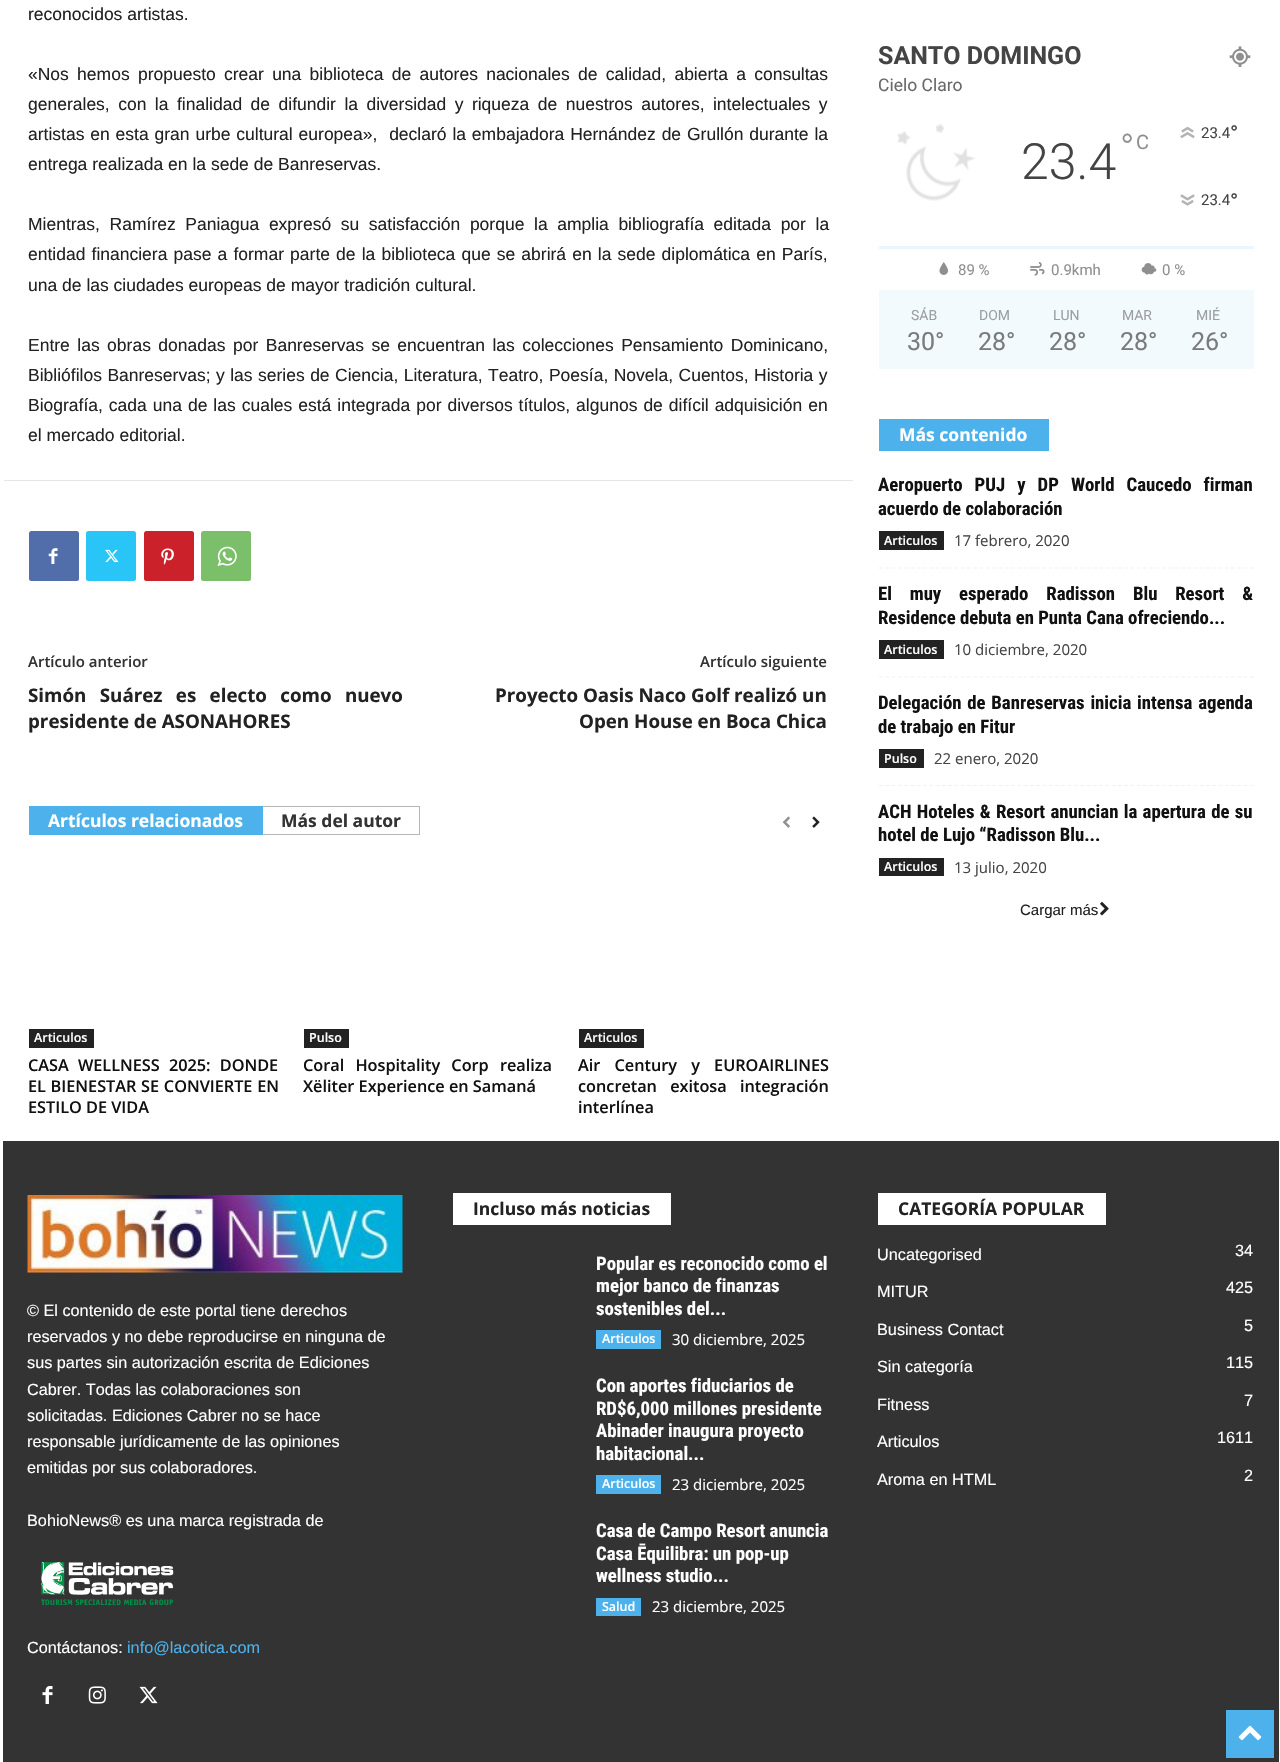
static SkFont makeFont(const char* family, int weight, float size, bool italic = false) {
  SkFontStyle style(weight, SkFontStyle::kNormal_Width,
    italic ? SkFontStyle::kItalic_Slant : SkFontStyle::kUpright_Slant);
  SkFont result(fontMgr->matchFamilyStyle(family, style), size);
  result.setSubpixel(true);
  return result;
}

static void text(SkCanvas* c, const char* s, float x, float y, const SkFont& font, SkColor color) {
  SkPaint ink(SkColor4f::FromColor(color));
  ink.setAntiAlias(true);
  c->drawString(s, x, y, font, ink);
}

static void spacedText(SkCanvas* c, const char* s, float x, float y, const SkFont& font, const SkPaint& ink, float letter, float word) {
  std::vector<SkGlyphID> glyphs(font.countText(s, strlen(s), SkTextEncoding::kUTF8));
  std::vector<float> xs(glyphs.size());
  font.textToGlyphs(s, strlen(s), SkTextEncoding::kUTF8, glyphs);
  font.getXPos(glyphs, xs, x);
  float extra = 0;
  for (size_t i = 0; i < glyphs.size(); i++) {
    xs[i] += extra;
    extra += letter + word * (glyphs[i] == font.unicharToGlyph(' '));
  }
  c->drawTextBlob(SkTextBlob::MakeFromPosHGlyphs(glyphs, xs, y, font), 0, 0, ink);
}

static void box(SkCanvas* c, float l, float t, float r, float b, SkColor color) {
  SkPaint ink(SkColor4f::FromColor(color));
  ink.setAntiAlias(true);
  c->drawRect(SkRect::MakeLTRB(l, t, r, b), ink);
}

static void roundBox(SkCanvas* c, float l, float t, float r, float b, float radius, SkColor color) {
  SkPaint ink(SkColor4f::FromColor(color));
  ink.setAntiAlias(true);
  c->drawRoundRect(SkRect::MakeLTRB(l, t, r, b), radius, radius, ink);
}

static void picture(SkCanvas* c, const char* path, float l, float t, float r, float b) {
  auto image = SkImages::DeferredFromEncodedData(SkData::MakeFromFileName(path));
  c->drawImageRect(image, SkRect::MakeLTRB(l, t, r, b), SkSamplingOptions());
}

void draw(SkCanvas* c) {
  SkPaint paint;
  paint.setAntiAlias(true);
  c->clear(0xffffffff);
  SkFont face1 = makeFont("Liberation Sans", 400, 17.5f);
  text(c, "reconocidos artistas.", 28, 20, face1, 0xff222222);
  paint.setColor(0xff222222);
  spacedText(c, "«Nos hemos propuesto crear una biblioteca de autores nacionales de calidad, abierta a consultas", 28, 80, face1, paint, 0, 3.4f);
  spacedText(c, "generales, con la finalidad de difundir la diversidad y riqueza de nuestros autores, intelectuales y", 28, 110, face1, paint, 0, 3.6f);
  spacedText(c, "artistas en esta gran urbe cultural europea»,  declaró la embajadora Hernández de Grullón durante la", 28, 140, face1, paint, 0, 1);
  text(c, "entrega realizada en la sede de Banreservas.", 28, 170, face1, 0xff222222);
  spacedText(c, "Mientras, Ramírez Paniagua expresó su satisfacción porque la amplia bibliografía editada por la", 28, 230, face1, paint, 0, 4.75f);
  spacedText(c, "entidad financiera pase a formar parte de la biblioteca que se abrirá en la sede diplomática en París,", 28, 260, face1, paint, 0, 1.25f);
  text(c, "una de las ciudades europeas de mayor tradición cultural.", 28, 291, face1, 0xff222222);
  spacedText(c, "Entre las obras donadas por Banreservas se encuentran las colecciones Pensamiento Dominicano,", 28, 351, face1, paint, 0, 2.6f);
  spacedText(c, "Bibliófilos Banreservas; y las series de Ciencia, Literatura, Teatro, Poesía, Novela, Cuentos, Historia y", 28, 381, face1, paint, 0, 0.6f);
  spacedText(c, "Biografía, cada una de las cuales está integrada por diversos títulos, algunos de difícil adquisición en", 28, 411, face1, paint, 0, 1.1f);
  text(c, "el mercado editorial.", 28, 441, face1, 0xff222222);
  box(c, 4, 480, 853, 481, 0xffe6e6e6);
  roundBox(c, 29, 531, 79, 581, 2.5f, 0xff516eab);
  picture(c, "img_01.png", 48, 548, 58, 564);
  roundBox(c, 86, 531, 136, 581, 2.5f, 0xff29c5f6);
  picture(c, "img_02.png", 105, 549, 119, 562);
  roundBox(c, 144, 531, 194, 581, 2.5f, 0xffca212a);
  picture(c, "img_03.png", 161, 548, 174, 565);
  roundBox(c, 201, 531, 251, 581, 2.5f, 0xff7bbf6a);
  picture(c, "img_04.png", 217, 546, 237, 566);
  SkFont face2 = makeFont("Open Sans", 600, 15);
  text(c, "Artículo anterior", 28, 667, face2, 0xff333333);
  SkFont face3 = makeFont("Open Sans", 700, 18.75f);
  spacedText(c, "Simón Suárez es electo como nuevo", 28, 702, face3, paint, 0, 8.5f);
  text(c, "presidente de ASONAHORES", 28, 728, face3, 0xff222222);
  text(c, "Artículo siguiente", 700, 667, face2, 0xff333333);
  text(c, "Proyecto Oasis Naco Golf realizó un", 495, 702, face3, 0xff222222);
  text(c, "Open House en Boca Chica", 579, 728, face3, 0xff222222);
  box(c, 29, 806, 263, 835, 0xff4db2ec);
  SkFont face4 = makeFont("Open Sans", 700, 17.5f);
  text(c, "Artículos relacionados", 48, 827, face4, 0xffffffff);
  text(c, "Más del autor", 281, 827, face4, 0xff333333);
  box(c, 263, 806, 420, 807, 0xffb6b6b6);
  box(c, 419, 806, 420, 835, 0xffb6b6b6);
  box(c, 263, 834, 420, 835, 0xffb6b6b6);
  picture(c, "img_05.png", 782, 816, 790, 828);
  picture(c, "img_06.png", 812, 816, 820, 828);
  box(c, 29, 1029, 94, 1048, 0xff222222);
  SkFont face5 = makeFont("Open Sans", 600, 12.5f);
  text(c, "Articulos", 34, 1042, face5, 0xffffffff);
  SkFont face6 = makeFont("Open Sans", 600, 16.25f);
  paint.setColor(0xff111111);
  spacedText(c, "CASA WELLNESS 2025: DONDE", 28, 1071, face6, paint, 0, 5);
  spacedText(c, "EL BIENESTAR SE CONVIERTE EN", 28, 1092, face6, paint, 0, 0.5f);
  text(c, "ESTILO DE VIDA", 28, 1113, face6, 0xff111111);
  box(c, 304, 1029, 349, 1048, 0xff222222);
  text(c, "Pulso", 309, 1042, face5, 0xffffffff);
  spacedText(c, "Coral Hospitality Corp realiza", 303, 1071, face6, paint, 0, 7);
  text(c, "Xëliter Experience en Samaná", 303, 1092, face6, 0xff111111);
  box(c, 579, 1029, 644, 1048, 0xff222222);
  text(c, "Articulos", 584, 1042, face5, 0xffffffff);
  spacedText(c, "Air Century y EUROAIRLINES", 578, 1071, face6, paint, 0, 10);
  spacedText(c, "concretan exitosa integración", 578, 1092, face6, paint, 0, 9);
  text(c, "interlínea", 578, 1113, face6, 0xff111111);
  SkFont face7 = makeFont("Roboto", 700, 25);
  text(c, "SANTO DOMINGO", 878, 64, face7, 0xff444444);
  picture(c, "img_07.png", 1229, 46, 1251, 67);
  SkFont face8 = makeFont("Roboto", 400, 17.5f);
  text(c, "Cielo Claro", 878, 91, face8, 0xff696969);
  picture(c, "img_08.png", 897, 123, 975, 201);
  SkFont face9 = makeFont("Roboto", 300, 50);
  text(c, "23.4", 1021, 179, face9, 0xff444444);
  SkFont face10 = makeFont("Roboto", 300, 38);
  text(c, "°", 1120, 161, face10, 0xff8f8f8f);
  SkFont face11 = makeFont("Roboto", 400, 20);
  text(c, "C", 1136, 149, face11, 0xff8f8f8f);
  picture(c, "img_09.png", 1180, 126, 1195, 139);
  SkFont face12 = makeFont("Roboto", 400, 15);
  text(c, "23.4", 1201, 138, face12, 0xff444444);
  SkFont face13 = makeFont("Roboto", 400, 22);
  text(c, "°", 1230, 141, face13, 0xff444444);
  picture(c, "img_10.png", 1180, 194, 1195, 206);
  text(c, "23.4", 1201, 205, face12, 0xff444444);
  text(c, "°", 1230, 209, face13, 0xff444444);
  box(c, 879, 246, 1254, 249, 0xffeaf6fd);
  picture(c, "img_11.png", 939, 262, 948, 275);
  text(c, "89 %", 958, 275, face12, 0xff8f8f8f);
  picture(c, "img_12.png", 1030, 262, 1045, 276);
  text(c, "0.9kmh", 1051, 275, face12, 0xff8f8f8f);
  picture(c, "img_13.png", 1141, 263, 1157, 275);
  text(c, "0 %", 1162, 275, face12, 0xff8f8f8f);
  box(c, 879, 290, 1254, 369, 0xfff3fafe);
  SkFont face14 = makeFont("Roboto", 400, 14);
  text(c, "SÁB", 911, 320, face14, 0xff9c9fa1);
  SkFont face15 = makeFont("Roboto", 400, 25);
  text(c, "30°", 907, 350, face15, 0xff797b7c);
  text(c, "DOM", 979, 320, face14, 0xff9c9fa1);
  text(c, "28°", 978, 350, face15, 0xff797b7c);
  text(c, "LUN", 1053, 320, face14, 0xff9c9fa1);
  text(c, "28°", 1049, 350, face15, 0xff797b7c);
  text(c, "MAR", 1122, 320, face14, 0xff9c9fa1);
  text(c, "28°", 1120, 350, face15, 0xff797b7c);
  text(c, "MIÉ", 1196, 320, face14, 0xff9c9fa1);
  text(c, "26°", 1191, 350, face15, 0xff797b7c);
  box(c, 879, 419, 1049, 451, 0xff4db2ec);
  text(c, "Más contenido", 899, 441, face4, 0xffffffff);
  paint.setStyle(SkPaint::kStroke_Style);
  paint.setStrokeWidth(1.2f);
  paint.setColor(0xfff1f1f1);
  paint.setPathEffect(SkDashPathEffect::Make({{3.75f, 2.54f}}, 0));
  c->drawPath(SkPathBuilder().moveTo(879, 568).lineTo(1254, 568).detach(), paint);
  paint.setPathEffect(nullptr);
  SkFont face16 = makeFont("Roboto Condensed", 700, 18.75f);
  paint.setStyle(SkPaint::kFill_Style);
  paint.setColor(0xff111111);
  spacedText(c, "Aeropuerto PUJ y DP World Caucedo firman", 878, 491, face16, paint, 0, 7.75f);
  text(c, "acuerdo de colaboración", 878, 515, face16, 0xff111111);
  box(c, 879, 531, 944, 550, 0xff222222);
  text(c, "Articulos", 884, 545, face5, 0xffffffff);
  SkFont face17 = makeFont("Open Sans", 400, 15);
  text(c, "17 febrero, 2020", 954, 546, face17, 0xff444444);
  paint.setStyle(SkPaint::kStroke_Style);
  paint.setColor(0xfff1f1f1);
  paint.setPathEffect(SkDashPathEffect::Make({{3.75f, 2.54f}}, 0));
  c->drawPath(SkPathBuilder().moveTo(879, 677).lineTo(1254, 677).detach(), paint);
  paint.setPathEffect(nullptr);
  paint.setStyle(SkPaint::kFill_Style);
  paint.setColor(0xff111111);
  spacedText(c, "El muy esperado Radisson Blu Resort &", 878, 600, face16, paint, 0, 13.5f);
  text(c, "Residence debuta en Punta Cana ofreciendo...", 878, 624, face16, 0xff111111);
  box(c, 879, 640, 944, 659, 0xff222222);
  text(c, "Articulos", 884, 654, face5, 0xffffffff);
  text(c, "10 diciembre, 2020", 954, 655, face17, 0xff444444);
  paint.setStyle(SkPaint::kStroke_Style);
  paint.setColor(0xfff1f1f1);
  paint.setPathEffect(SkDashPathEffect::Make({{3.75f, 2.54f}}, 0));
  c->drawPath(SkPathBuilder().moveTo(879, 785.5f).lineTo(1254, 785.5f).detach(), paint);
  paint.setPathEffect(nullptr);
  paint.setStyle(SkPaint::kFill_Style);
  paint.setColor(0xff111111);
  spacedText(c, "Delegación de Banreservas inicia intensa agenda", 878, 709, face16, paint, 0, 1.5f);
  text(c, "de trabajo en Fitur", 878, 733, face16, 0xff111111);
  box(c, 879, 749, 924, 768, 0xff222222);
  text(c, "Pulso", 884, 763, face5, 0xffffffff);
  text(c, "22 enero, 2020", 934, 764, face17, 0xff444444);
  spacedText(c, "ACH Hoteles & Resort anuncian la apertura de su", 878, 818, face16, paint, 0, 1);
  text(c, "hotel de Lujo “Radisson Blu...", 878, 841, face16, 0xff111111);
  box(c, 879, 858, 944, 876, 0xff222222);
  text(c, "Articulos", 884, 871, face5, 0xffffffff);
  text(c, "13 julio, 2020", 954, 873, face17, 0xff444444);
  SkFont face18 = makeFont("Liberation Sans", 400, 15);
  text(c, "Cargar más", 1020, 915, face18, 0xff222222);
  picture(c, "img_14.png", 1100, 901, 1109, 916);
  box(c, 3, 1141, 1279, 1762, 0xff333333);
  picture(c, "img_15.png", 27, 1195, 403, 1273);
  SkFont face19 = makeFont("Liberation Sans", 400, 16.25f);
  text(c, "© El contenido de este portal tiene derechos", 27, 1316, face19, 0xffffffff);
  text(c, "reservados y no debe reproducirse en ninguna de", 27, 1342, face19, 0xffffffff);
  text(c, "sus partes sin autorización escrita de Ediciones", 27, 1368, face19, 0xffffffff);
  text(c, "Cabrer. Todas las colaboraciones son", 27, 1395, face19, 0xffffffff);
  text(c, "solicitadas. Ediciones Cabrer no se hace", 27, 1421, face19, 0xffffffff);
  text(c, "responsable jurídicamente de las opiniones", 27, 1447, face19, 0xffffffff);
  text(c, "emitidas por sus colaboradores.", 27, 1473, face19, 0xffffffff);
  text(c, "BohioNews® es una marca registrada de", 27, 1526, face19, 0xffffffff);
  picture(c, "img_16.png", 41, 1562, 174, 1605);
  text(c, "Contáctanos:", 27, 1653, face19, 0xffffffff);
  text(c, "info@lacotica.com", 127, 1653, face19, 0xff4db2ec);
  picture(c, "img_17.png", 42, 1686, 53, 1704);
  picture(c, "img_18.png", 88, 1686, 106, 1704);
  picture(c, "img_19.png", 139, 1686, 158, 1704);
  box(c, 453, 1193, 671, 1225, 0xffffffff);
  text(c, "Incluso más noticias", 473, 1215, face4, 0xff222222);
  text(c, "Popular es reconocido como el", 596, 1270, face16, 0xffffffff);
  text(c, "mejor banco de finanzas", 596, 1292, face16, 0xffffffff);
  text(c, "sostenibles del...", 596, 1315, face16, 0xffffffff);
  box(c, 596, 1330, 661, 1349, 0xff4db2ec);
  text(c, "Articulos", 602, 1343, face5, 0xffffffff);
  text(c, "30 diciembre, 2025", 672, 1345, face17, 0xffffffff);
  text(c, "Con aportes fiduciarios de", 596, 1392, face16, 0xffffffff);
  text(c, "RD$6,000 millones presidente", 596, 1415, face16, 0xffffffff);
  text(c, "Abinader inaugura proyecto", 596, 1437, face16, 0xffffffff);
  text(c, "habitacional...", 596, 1460, face16, 0xffffffff);
  box(c, 596, 1475, 661, 1494, 0xff4db2ec);
  text(c, "Articulos", 602, 1488, face5, 0xffffffff);
  text(c, "23 diciembre, 2025", 672, 1490, face17, 0xffffffff);
  text(c, "Casa de Campo Resort anuncia", 596, 1537, face16, 0xffffffff);
  text(c, "Casa Ēquilibra: un pop-up", 596, 1560, face16, 0xffffffff);
  text(c, "wellness studio...", 596, 1582, face16, 0xffffffff);
  box(c, 596, 1598, 641, 1616, 0xff4db2ec);
  text(c, "Salud", 602, 1611, face5, 0xffffffff);
  text(c, "23 diciembre, 2025", 652, 1612, face17, 0xffffffff);
  box(c, 878, 1193, 1106, 1225, 0xffffffff);
  text(c, "CATEGORÍA POPULAR", 898, 1215, face4, 0xff222222);
  text(c, "Uncategorised", 877, 1260, face19, 0xffffffff);
  text(c, "34", 1235, 1256, face19, 0xffffffff);
  text(c, "MITUR", 877, 1297, face19, 0xffffffff);
  text(c, "425", 1226, 1293, face19, 0xffffffff);
  text(c, "Business Contact", 877, 1335, face19, 0xffffffff);
  text(c, "5", 1244, 1331, face19, 0xffffffff);
  text(c, "Sin categoría", 877, 1372, face19, 0xffffffff);
  text(c, "115", 1226, 1368, face19, 0xffffffff);
  text(c, "Fitness", 877, 1410, face19, 0xffffffff);
  text(c, "7", 1244, 1406, face19, 0xffffffff);
  text(c, "Articulos", 877, 1447, face19, 0xffffffff);
  text(c, "1611", 1217, 1443, face19, 0xffffffff);
  text(c, "Aroma en HTML", 877, 1485, face19, 0xffffffff);
  text(c, "2", 1244, 1481, face19, 0xffffffff);
  box(c, 1226, 1710, 1274, 1758, 0xff4db2ec);
  picture(c, "img_20.png", 1238, 1725, 1262, 1741);
}
